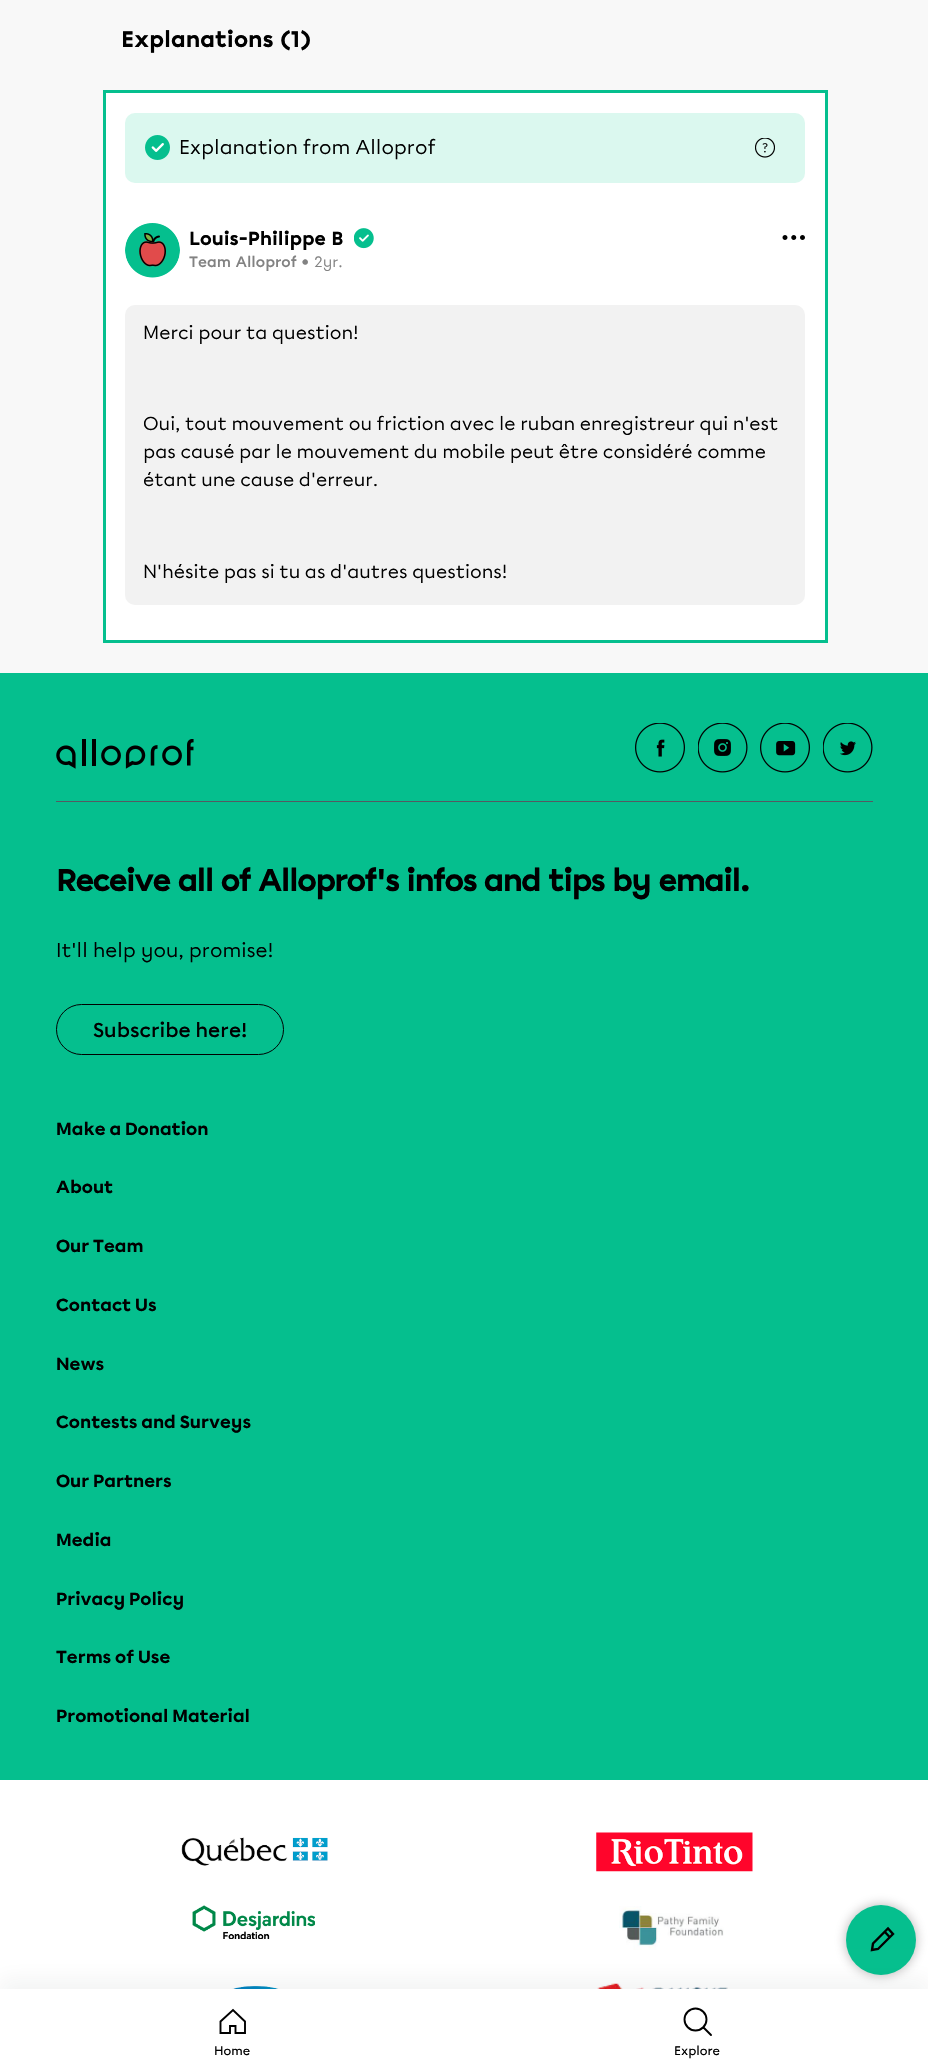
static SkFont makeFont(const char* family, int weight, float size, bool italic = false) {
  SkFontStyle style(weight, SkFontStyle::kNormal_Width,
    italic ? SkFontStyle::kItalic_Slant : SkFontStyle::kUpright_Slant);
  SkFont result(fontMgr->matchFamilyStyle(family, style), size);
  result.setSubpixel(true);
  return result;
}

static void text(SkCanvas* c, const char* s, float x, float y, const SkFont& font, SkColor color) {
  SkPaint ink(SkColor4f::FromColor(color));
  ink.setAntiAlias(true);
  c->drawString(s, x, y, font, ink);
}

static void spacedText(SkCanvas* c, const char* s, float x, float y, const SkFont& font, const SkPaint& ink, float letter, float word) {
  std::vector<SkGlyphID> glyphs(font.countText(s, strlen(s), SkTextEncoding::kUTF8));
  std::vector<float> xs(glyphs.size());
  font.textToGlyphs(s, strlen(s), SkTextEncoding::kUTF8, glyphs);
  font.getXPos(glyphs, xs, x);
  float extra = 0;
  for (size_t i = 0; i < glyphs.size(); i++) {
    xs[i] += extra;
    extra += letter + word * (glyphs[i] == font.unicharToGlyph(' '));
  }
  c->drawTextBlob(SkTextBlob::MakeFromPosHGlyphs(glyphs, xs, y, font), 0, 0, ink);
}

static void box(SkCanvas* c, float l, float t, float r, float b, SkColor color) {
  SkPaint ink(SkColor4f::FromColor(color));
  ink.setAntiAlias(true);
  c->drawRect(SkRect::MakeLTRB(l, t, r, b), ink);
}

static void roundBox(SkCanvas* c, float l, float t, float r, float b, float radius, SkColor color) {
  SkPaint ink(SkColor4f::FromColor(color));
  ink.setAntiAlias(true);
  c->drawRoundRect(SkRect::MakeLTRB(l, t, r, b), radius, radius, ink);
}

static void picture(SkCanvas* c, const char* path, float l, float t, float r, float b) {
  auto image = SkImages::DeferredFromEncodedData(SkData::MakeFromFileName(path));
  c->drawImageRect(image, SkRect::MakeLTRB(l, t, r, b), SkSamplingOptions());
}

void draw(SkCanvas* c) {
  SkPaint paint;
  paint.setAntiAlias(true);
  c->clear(0xfff8f8f8);
  SkFont face1 = makeFont("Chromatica", 900, 22.5f);
  text(c, "Explanations (1)", 121, 47, face1, 0xff000000);
  paint.setColor(0xffffffff);
  c->drawRect(SkRect::MakeLTRB(104.5f, 91.5f, 826.5f, 641.5f), paint);
  paint.setStyle(SkPaint::kStroke_Style);
  paint.setStrokeWidth(3);
  paint.setColor(0xff05bf8e);
  c->drawRect(SkRect::MakeLTRB(104.5f, 91.5f, 826.5f, 641.5f), paint);
  roundBox(c, 125, 113, 805, 183, 10, 0xffdbf8ef);
  picture(c, "img_01.png", 145, 135, 170, 160);
  SkFont face2 = makeFont("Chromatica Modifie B", 400, 20);
  text(c, "Explanation from Alloprof", 179, 154, face2, 0xff000000);
  picture(c, "img_02.png", 755, 138, 775, 158);
  picture(c, "img_03.png", 125, 223, 180, 278);
  SkFont face3 = makeFont("Chromatica", 900, 18.75f);
  text(c, "Louis-Philippe B", 189, 245, face3, 0xff000000);
  picture(c, "img_04.png", 354, 228, 374, 249);
  picture(c, "img_05.png", 782, 235, 805, 240);
  SkFont face4 = makeFont("Chromatica", 700, 15);
  text(c, "Team Alloprof •", 189, 267, face4, 0xff828282);
  SkFont face5 = makeFont("Chromatica Modifie B", 400, 15);
  text(c, "2yr.", 314, 267, face5, 0xff828282);
  roundBox(c, 125, 305, 805, 605, 10, 0xfff2f2f2);
  SkFont face6 = makeFont("Chromatica Modifie B", 400, 18.75f);
  text(c, "Merci pour ta question!", 143, 339, face6, 0xff000000);
  text(c, "Oui, tout mouvement ou friction avec le ruban enregistreur qui n'est", 143, 430, face6, 0xff000000);
  text(c, "pas causé par le mouvement du mobile peut être considéré comme", 143, 458, face6, 0xff000000);
  text(c, "étant une cause d'erreur.", 143, 486, face6, 0xff000000);
  text(c, "N'hésite pas si tu as d'autres questions!", 143, 578, face6, 0xff000000);
  box(c, 0, 1780, 928, 1989, 0xffffffff);
  picture(c, "img_14.png", 619, 1906, 724, 1950);
  picture(c, "img_15.png", 211, 1986, 298, 1989);
  picture(c, "img_16.png", 597, 1983, 753, 1989);
  paint.setStyle(SkPaint::kFill_Style);
  paint.setColor(0x806c6767);
  paint.setMaskFilter(SkMaskFilter::MakeBlur(kNormal_SkBlurStyle, 6));
  c->drawRoundRect(SkRect::MakeLTRB(846, 1905, 916, 1975), 35, 35, paint);
  paint.setMaskFilter(nullptr);
  paint.setColor(0xff05bf8e);
  c->drawCircle(881, 1940, 35, paint);
  paint.setStyle(SkPaint::kStroke_Style);
  paint.setStrokeWidth(2.4f);
  paint.setColor(0xff000000);
  c->drawPath(SkPathBuilder().moveTo(893, 1934).lineTo(878, 1949).lineTo(872, 1950).lineTo(873, 1943.5f).lineTo(888, 1928.5f).close().moveTo(890, 1937.5f).lineTo(884.5f, 1931.5f).detach(), paint);
  paint.setStyle(SkPaint::kFill_Style);
  paint.setColor(0x0d1a202c);
  paint.setMaskFilter(SkMaskFilter::MakeBlur(kNormal_SkBlurStyle, 10));
  c->drawRect(SkRect::MakeLTRB(0, 1979, 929, 2059), paint);
  paint.setMaskFilter(nullptr);
  box(c, 0, 1989, 928, 2068, 0xffffffff);
  paint.setStyle(SkPaint::kStroke_Style);
  paint.setStrokeWidth(1.9f);
  paint.setColor(0xff000000);
  c->drawPath(SkPathBuilder().moveTo(245, 2021.5f).lineTo(245, 2033).lineTo(235.5f, 2033).lineTo(235.5f, 2026).lineTo(230, 2026).lineTo(230, 2033).lineTo(220.5f, 2033).lineTo(220.5f, 2021.5f).lineTo(233, 2010).close().detach(), paint);
  SkFont face7 = makeFont("Chromatica", 500, 12.5f);
  text(c, "Home", 214, 2055, face7, 0xff000000);
  c->drawCircle(695.5f, 2019.5f, 11, paint);
  paint.setStrokeCap(SkPaint::kRound_Cap);
  c->drawPath(SkPathBuilder().moveTo(703.5f, 2027.5f).lineTo(711, 2035).detach(), paint);
  text(c, "Explore", 674, 2055, face7, 0xff000000);
  box(c, 0, 673, 928, 1780, 0xff05bf8e);
  box(c, 56, 801, 873, 802, 0xff555a62);
  picture(c, "img_06.png", 56, 739, 194, 769);
  picture(c, "img_07.png", 635, 723, 685, 773);
  picture(c, "img_08.png", 698, 723, 748, 773);
  picture(c, "img_09.png", 760, 723, 810, 773);
  picture(c, "img_10.png", 823, 723, 873, 773);
  SkFont face8 = makeFont("Chromatica", 900, 31.25f);
  paint.setStyle(SkPaint::kFill_Style);
  spacedText(c, "Receive all of Alloprof's infos and tips by email.", 56, 891, face8, paint, -1.57f, 0);
  text(c, "It'll help you, promise!", 56, 957, face2, 0xff000000);
  paint.setStyle(SkPaint::kStroke_Style);
  paint.setStrokeWidth(1);
  paint.setStrokeCap(SkPaint::kButt_Cap);
  c->drawRoundRect(SkRect::MakeLTRB(56.5f, 1004.5f, 283.5f, 1054.5f), 25, 25, paint);
  SkFont face9 = makeFont("Chromatica Modifie B", 500, 20);
  text(c, "Subscribe here!", 93, 1037, face9, 0xff000000);
  SkFont face10 = makeFont("Chromatica Modifie B", 700, 17.5f);
  text(c, "Make a Donation", 56, 1135, face10, 0xff000000);
  text(c, "About", 56, 1193, face10, 0xff000000);
  text(c, "Our Team", 56, 1252, face10, 0xff000000);
  text(c, "Contact Us", 56, 1311, face10, 0xff000000);
  text(c, "News", 56, 1370, face10, 0xff000000);
  text(c, "Contests and Surveys", 56, 1428, face10, 0xff000000);
  text(c, "Our Partners", 56, 1487, face10, 0xff000000);
  text(c, "Media", 56, 1546, face10, 0xff000000);
  text(c, "Privacy Policy", 56, 1605, face10, 0xff000000);
  text(c, "Terms of Use", 56, 1663, face10, 0xff000000);
  text(c, "Promotional Material", 56, 1722, face10, 0xff000000);
  picture(c, "img_11.png", 181, 1837, 328, 1866);
  picture(c, "img_12.png", 596, 1832, 753, 1872);
  picture(c, "img_13.png", 192, 1905, 315, 1939);
}
